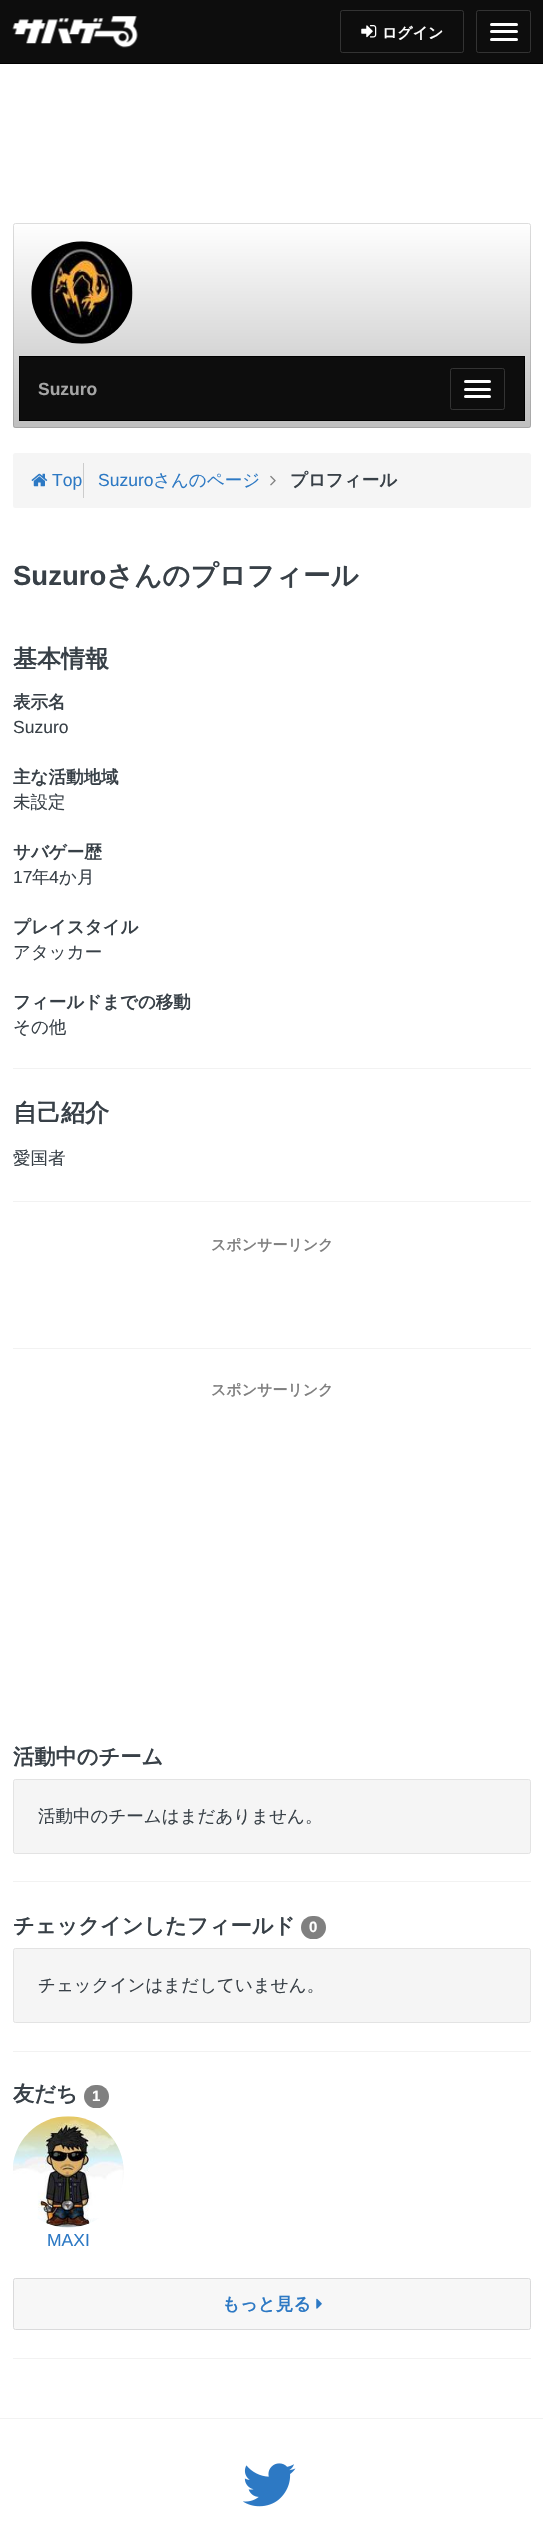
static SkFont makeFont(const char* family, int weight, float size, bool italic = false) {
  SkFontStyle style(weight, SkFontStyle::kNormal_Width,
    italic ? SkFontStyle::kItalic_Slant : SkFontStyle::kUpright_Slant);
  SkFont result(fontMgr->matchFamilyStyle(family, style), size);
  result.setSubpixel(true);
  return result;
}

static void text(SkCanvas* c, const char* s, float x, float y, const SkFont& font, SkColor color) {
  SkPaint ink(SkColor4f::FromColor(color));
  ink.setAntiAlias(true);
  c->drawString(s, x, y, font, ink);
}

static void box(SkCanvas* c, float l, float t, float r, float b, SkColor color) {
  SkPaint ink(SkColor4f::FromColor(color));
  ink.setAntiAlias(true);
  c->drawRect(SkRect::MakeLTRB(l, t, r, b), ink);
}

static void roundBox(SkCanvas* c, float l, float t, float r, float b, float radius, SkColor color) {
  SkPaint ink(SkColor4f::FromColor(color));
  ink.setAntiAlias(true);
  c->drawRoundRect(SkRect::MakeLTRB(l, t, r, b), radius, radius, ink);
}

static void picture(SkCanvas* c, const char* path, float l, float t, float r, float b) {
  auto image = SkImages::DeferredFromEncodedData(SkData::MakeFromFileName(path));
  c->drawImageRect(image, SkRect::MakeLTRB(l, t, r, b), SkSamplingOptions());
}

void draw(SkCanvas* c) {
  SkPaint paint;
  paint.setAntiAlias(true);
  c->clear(0xffffffff);
  box(c, 0, 0, 543, 63, 0xff0d0d0d);
  box(c, 0, 63, 543, 64, 0xff000000);
  picture(c, "img_01.png", 12, 16, 138, 48);
  paint.setStyle(SkPaint::kStroke_Style);
  paint.setStrokeWidth(1);
  paint.setColor(0xff333333);
  c->drawRoundRect(SkRect::MakeLTRB(340.5f, 10.5f, 463.5f, 52.5f), 2, 2, paint);
  picture(c, "img_02.png", 361, 25, 377, 38);
  SkFont face1 = makeFont("WenQuanYi Zen Hei", 700, 15);
  text(c, "ログイン", 382, 38, face1, 0xffffffff);
  c->drawRoundRect(SkRect::MakeLTRB(476.5f, 10.5f, 530.5f, 52.5f), 2, 2, paint);
  roundBox(c, 490, 23, 518, 26, 1.5f, 0xffffffff);
  roundBox(c, 490, 30, 518, 33, 1.5f, 0xffffffff);
  roundBox(c, 490, 38, 518, 41, 1.5f, 0xffffffff);
  paint.setColor(0xffdddddd);
  c->drawRoundRect(SkRect::MakeLTRB(13.5f, 223.5f, 530.5f, 427.5f), 2, 2, paint);
  paint.setStyle(SkPaint::kFill_Style);
  {
    const SkColor colors[] = {0x00000000, 0x40000000};
    const float stops[] = {0, 1};
    const SkPoint ends[] = {{272, 222}, {272, 428}};
    paint.setShader(SkGradientShader::MakeLinear(ends, colors, stops, 2, SkTileMode::kClamp));
    paint.setAlpha(255);
  }
  c->drawRoundRect(SkRect::MakeLTRB(13, 223, 531, 428), 2.5f, 2.5f, paint);
  picture(c, "img_03.png", 31, 241, 133, 344);
  paint.setShader(nullptr);
  paint.setColor(0xff0d0d0d);
  c->drawRect(SkRect::MakeLTRB(19.5f, 356.5f, 524.5f, 420.5f), paint);
  paint.setStyle(SkPaint::kStroke_Style);
  paint.setColor(0xff000000);
  c->drawRect(SkRect::MakeLTRB(19.5f, 356.5f, 524.5f, 420.5f), paint);
  SkFont face2 = makeFont("Liberation Sans", 700, 17.5f);
  text(c, "Suzuro", 38, 395, face2, 0xffa6a6a6);
  paint.setColor(0xff333333);
  c->drawRoundRect(SkRect::MakeLTRB(450.5f, 368.5f, 504.5f, 409.5f), 2, 2, paint);
  roundBox(c, 464, 380, 491, 383, 1.5f, 0xffffffff);
  roundBox(c, 464, 388, 491, 391, 1.5f, 0xffffffff);
  roundBox(c, 464, 395, 491, 398, 1.5f, 0xffffffff);
  roundBox(c, 13, 453, 531, 508, 2.5f, 0xfff5f5f5);
  c->save();
  c->clipRect(SkRect::MakeLTRB(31, 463, 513, 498));
  c->clipPath(SkPathBuilder(SkPathFillType::kEvenOdd).moveTo(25, 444).lineTo(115, 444).lineTo(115, 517).lineTo(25, 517).close().moveTo(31, 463).lineTo(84, 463).lineTo(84, 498).lineTo(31, 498).close().detach(), true);
  paint.setStyle(SkPaint::kFill_Style);
  paint.setColor(0xfff5f5f5);
  paint.setMaskFilter(SkMaskFilter::MakeBlur(kNormal_SkBlurStyle, 6));
  c->drawRect(SkRect::MakeLTRB(44, 463, 96, 498), paint);
  paint.setMaskFilter(nullptr);
  c->restore();
  box(c, 83, 463, 84, 498, 0xffcccccc);
  picture(c, "img_04.png", 31, 473, 48, 487);
  SkFont face3 = makeFont("Liberation Sans", 400, 17.5f);
  text(c, "Top", 52, 486, face3, 0xff2d79c4);
  text(c, "Suzuro", 98, 486, face3, 0xff2d79c4);
  SkFont face4 = makeFont("WenQuanYi Zen Hei", 500, 17.5f);
  text(c, "さんのページ", 153, 486, face4, 0xff2d79c4);
  picture(c, "img_05.png", 270, 475, 276, 486);
  SkFont face5 = makeFont("WenQuanYi Zen Hei", 700, 17.5f);
  text(c, "プロフィール", 290, 486, face5, 0xff384047);
  SkFont face6 = makeFont("Liberation Sans", 700, 27.5f);
  text(c, "Suzuro", 13, 585, face6, 0xff384047);
  SkFont face7 = makeFont("WenQuanYi Zen Hei", 700, 27.5f);
  text(c, "さんのプロフィール", 106, 585, face7, 0xff384047);
  SkFont face8 = makeFont("WenQuanYi Zen Hei", 700, 24);
  text(c, "基本情報", 13, 667, face8, 0xff384047);
  text(c, "表示名", 13, 708, face5, 0xff384047);
  text(c, "Suzuro", 13, 733, face3, 0xff384047);
  text(c, "主な活動地域", 13, 783, face5, 0xff384047);
  text(c, "未設定", 13, 808, face4, 0xff384047);
  text(c, "サバゲー歴", 13, 858, face5, 0xff384047);
  text(c, "17", 13, 883, face3, 0xff384047);
  text(c, "年", 32, 883, face4, 0xff384047);
  text(c, "4", 49, 883, face3, 0xff384047);
  text(c, "か月", 59, 883, face4, 0xff384047);
  text(c, "プレイスタイル", 13, 933, face5, 0xff384047);
  text(c, "アタッカー", 13, 958, face4, 0xff384047);
  text(c, "フィールドまでの移動", 13, 1008, face5, 0xff384047);
  text(c, "その他", 13, 1033, face4, 0xff384047);
  box(c, 13, 1068, 531, 1069, 0xfff2f2f2);
  text(c, "自己紹介", 13, 1121, face8, 0xff384047);
  text(c, "愛国者", 13, 1164, face4, 0xff384047);
  box(c, 13, 1201, 531, 1202, 0xfff2f2f2);
  text(c, "スポンサーリンク", 211, 1250, face1, 0xff808080);
  box(c, 13, 1348, 531, 1349, 0xfff2f2f2);
  text(c, "スポンサーリンク", 211, 1395, face1, 0xff808080);
  SkFont face9 = makeFont("WenQuanYi Zen Hei", 700, 21.25f);
  text(c, "活動中のチーム", 13, 1764, face9, 0xff384047);
  c->drawRoundRect(SkRect::MakeLTRB(13.5f, 1779.5f, 530.5f, 1853.5f), 2, 2, paint);
  paint.setStyle(SkPaint::kStroke_Style);
  paint.setColor(0xffe3e3e3);
  c->drawRoundRect(SkRect::MakeLTRB(13.5f, 1779.5f, 530.5f, 1853.5f), 2, 2, paint);
  text(c, "活動中のチームはまだありません。", 38, 1822, face4, 0xff384047);
  box(c, 13, 1881, 531, 1882, 0xfff2f2f2);
  text(c, "チェックインしたフィールド", 13, 1933, face9, 0xff384047);
  roundBox(c, 301, 1916, 326, 1939, 11.5f, 0xff808080);
  SkFont face10 = makeFont("Liberation Sans", 700, 15);
  text(c, "0", 309, 1932, face10, 0xffffffff);
  paint.setStyle(SkPaint::kFill_Style);
  paint.setColor(0xfff5f5f5);
  c->drawRoundRect(SkRect::MakeLTRB(13.5f, 1948.5f, 530.5f, 2022.5f), 2, 2, paint);
  paint.setStyle(SkPaint::kStroke_Style);
  paint.setColor(0xffe3e3e3);
  c->drawRoundRect(SkRect::MakeLTRB(13.5f, 1948.5f, 530.5f, 2022.5f), 2, 2, paint);
  text(c, "チェックインはまだしていません。", 38, 1991, face4, 0xff384047);
  box(c, 13, 2051, 531, 2052, 0xfff2f2f2);
  text(c, "友だち", 13, 2101, face9, 0xff384047);
  roundBox(c, 84, 2085, 109, 2108, 11.5f, 0xff808080);
  text(c, "1", 92, 2101, face10, 0xffffffff);
  picture(c, "img_06.png", 13, 2116, 124, 2228);
  text(c, "MAXI", 47, 2246, face3, 0xff2d79c4);
  paint.setStyle(SkPaint::kFill_Style);
  paint.setColor(0xfff7f7f7);
  c->drawRoundRect(SkRect::MakeLTRB(13.5f, 2278.5f, 530.5f, 2329.5f), 2, 2, paint);
  paint.setStyle(SkPaint::kStroke_Style);
  paint.setColor(0xffdadadb);
  c->drawRoundRect(SkRect::MakeLTRB(13.5f, 2278.5f, 530.5f, 2329.5f), 2, 2, paint);
  text(c, "もっと見る", 222, 2310, face5, 0xff2d79c4);
  picture(c, "img_07.png", 316, 2298, 322, 2309);
  box(c, 13, 2358, 531, 2359, 0xfff2f2f2);
  box(c, 0, 2418, 543, 2419, 0xfff2f2f2);
  picture(c, "img_08.png", 243, 2463, 296, 2507);
}
